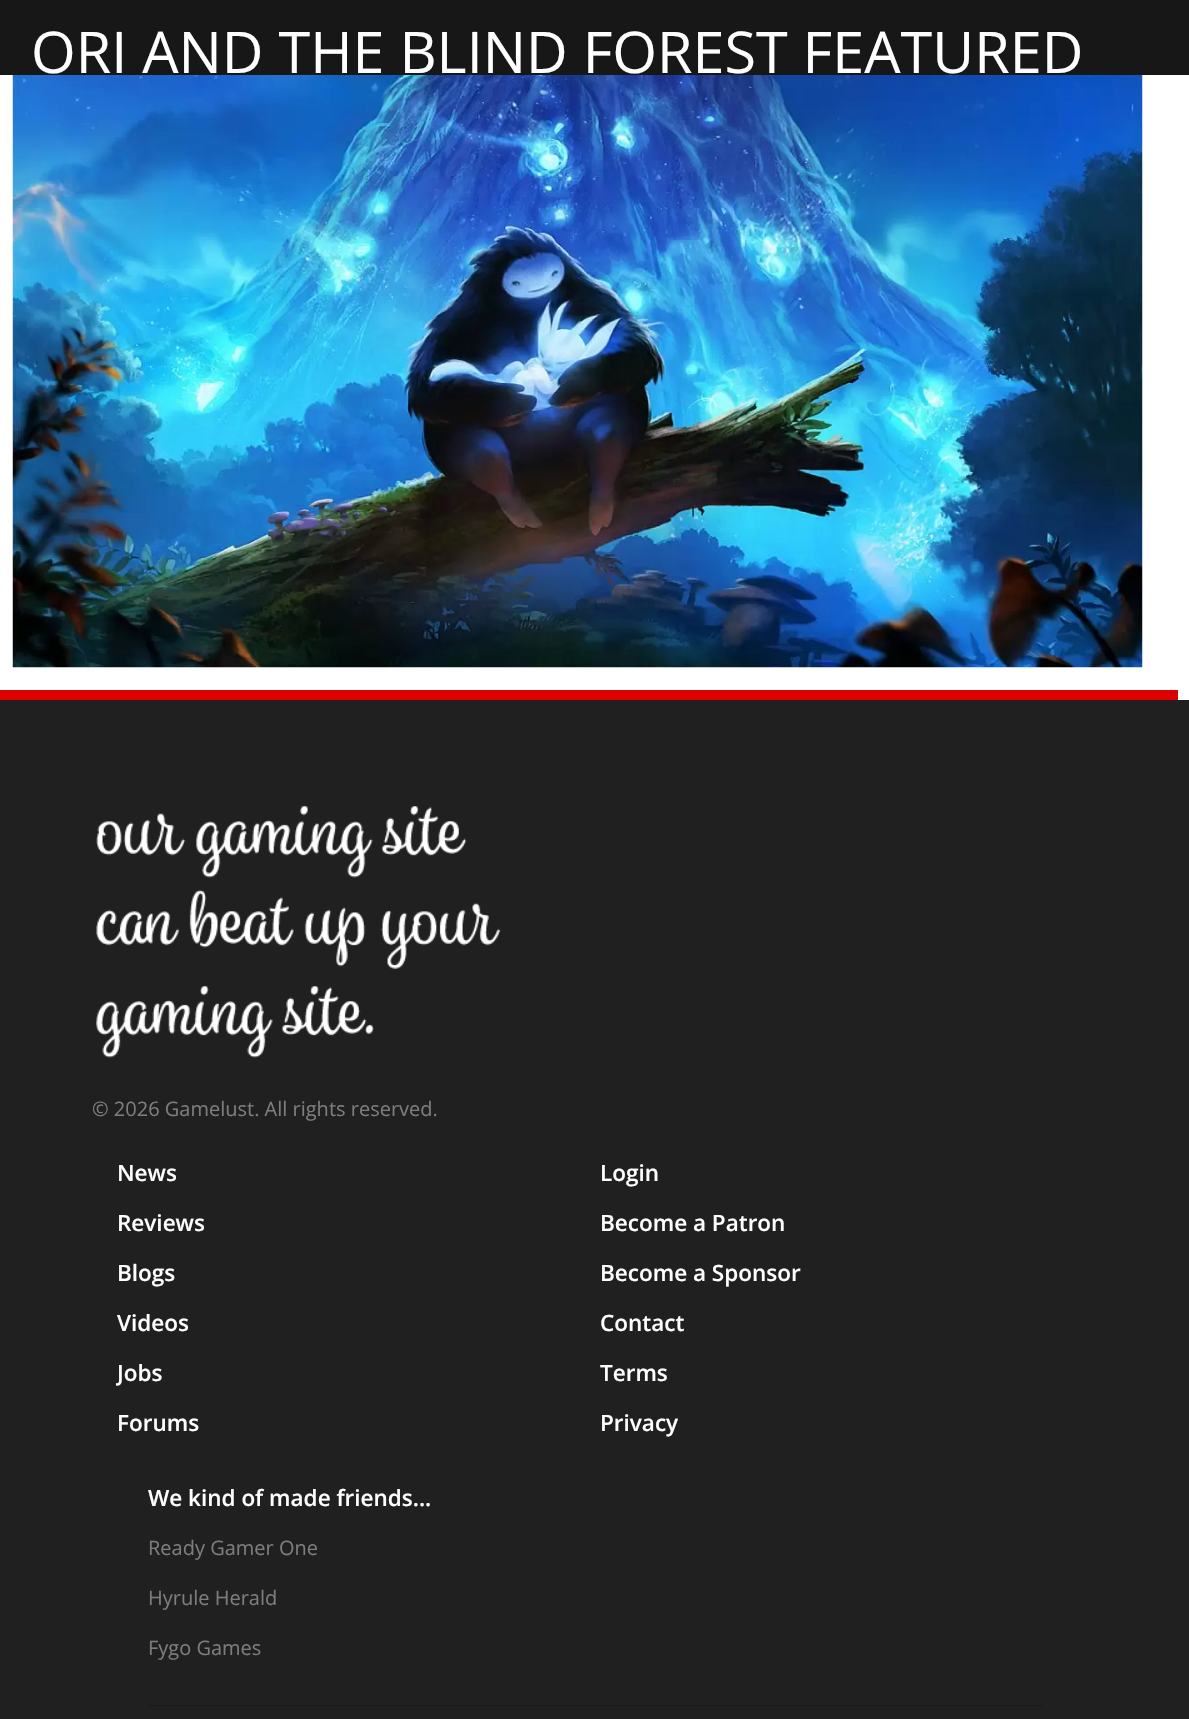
static SkFont makeFont(const char* family, int weight, float size, bool italic = false) {
  SkFontStyle style(weight, SkFontStyle::kNormal_Width,
    italic ? SkFontStyle::kItalic_Slant : SkFontStyle::kUpright_Slant);
  SkFont result(fontMgr->matchFamilyStyle(family, style), size);
  result.setSubpixel(true);
  return result;
}

static void text(SkCanvas* c, const char* s, float x, float y, const SkFont& font, SkColor color) {
  SkPaint ink(SkColor4f::FromColor(color));
  ink.setAntiAlias(true);
  c->drawString(s, x, y, font, ink);
}

static void box(SkCanvas* c, float l, float t, float r, float b, SkColor color) {
  SkPaint ink(SkColor4f::FromColor(color));
  ink.setAntiAlias(true);
  c->drawRect(SkRect::MakeLTRB(l, t, r, b), ink);
}

static void picture(SkCanvas* c, const char* path, float l, float t, float r, float b) {
  auto image = SkImages::DeferredFromEncodedData(SkData::MakeFromFileName(path));
  c->drawImageRect(image, SkRect::MakeLTRB(l, t, r, b), SkSamplingOptions());
}

void draw(SkCanvas* c) {
  SkPaint paint;
  paint.setAntiAlias(true);
  c->clear(0xffffffff);
  box(c, 0, 0, 1189, 75, 0xff171717);
  box(c, 0, 690, 1178, 700, 0xffdd0000);
  SkFont face1 = makeFont("Open Sans", 400, 57.5f);
  text(c, "ORI AND THE BLIND FOREST FEATURED", 31, 73, face1, 0xffffffff);
  picture(c, "img_01.png", 12, 75, 1143, 668);
  box(c, 0, 700, 1189, 1719, 0xff202020);
  picture(c, "img_02.png", 96, 806, 501, 1058);
  SkFont face2 = makeFont("Open Sans", 400, 20);
  text(c, "© 2026 Gamelust. All rights reserved.", 92, 1116, face2, 0xff7d7d7d);
  SkFont face3 = makeFont("Open Sans", 600, 22.5f);
  text(c, "News", 117, 1181, face3, 0xffffffff);
  text(c, "Reviews", 117, 1231, face3, 0xffffffff);
  text(c, "Blogs", 117, 1281, face3, 0xffffffff);
  text(c, "Videos", 117, 1331, face3, 0xffffffff);
  c->save();
  c->clipRect(SkRect::MakeLTRB(116, 1355, 205, 1390));
  text(c, "Jobs", 117, 1381, face3, 0xffffffff);
  c->restore();
  text(c, "Forums", 117, 1431, face3, 0xffffffff);
  text(c, "Login", 600, 1181, face3, 0xffffffff);
  text(c, "Become a Patron", 600, 1231, face3, 0xffffffff);
  text(c, "Become a Sponsor", 600, 1281, face3, 0xffffffff);
  text(c, "Contact", 600, 1331, face3, 0xffffffff);
  text(c, "Terms", 600, 1381, face3, 0xffffffff);
  text(c, "Privacy", 600, 1431, face3, 0xffffffff);
  text(c, "We kind of made friends...", 148, 1506, face3, 0xffffffff);
  text(c, "Ready Gamer One", 148, 1555, face2, 0xff7d7d7d);
  text(c, "Hyrule Herald", 148, 1605, face2, 0xff7d7d7d);
  text(c, "Fygo Games", 148, 1655, face2, 0xff7d7d7d);
  box(c, 148, 1705, 1043, 1706, 0xff1a1a1a);
}
